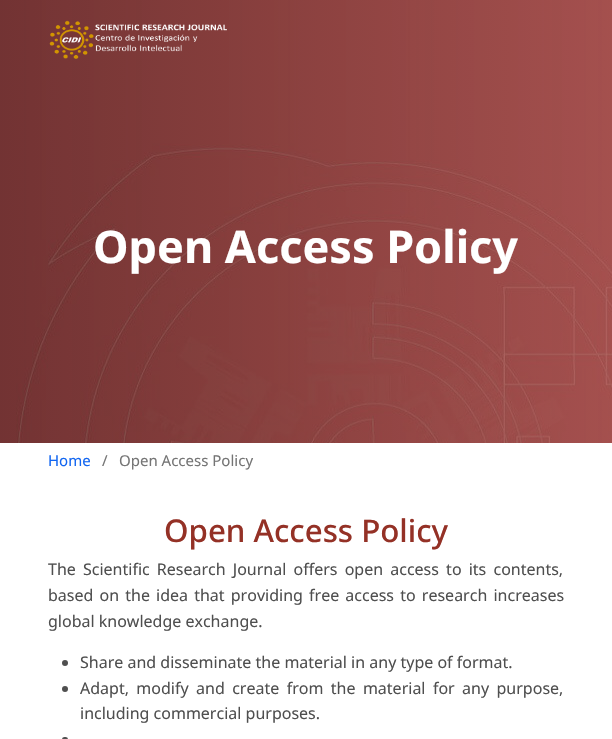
static SkFont makeFont(const char* family, int weight, float size, bool italic = false) {
  SkFontStyle style(weight, SkFontStyle::kNormal_Width,
    italic ? SkFontStyle::kItalic_Slant : SkFontStyle::kUpright_Slant);
  SkFont result(fontMgr->matchFamilyStyle(family, style), size);
  result.setSubpixel(true);
  return result;
}

static void text(SkCanvas* c, const char* s, float x, float y, const SkFont& font, SkColor color) {
  SkPaint ink(SkColor4f::FromColor(color));
  ink.setAntiAlias(true);
  c->drawString(s, x, y, font, ink);
}

static void spacedText(SkCanvas* c, const char* s, float x, float y, const SkFont& font, const SkPaint& ink, float letter, float word) {
  std::vector<SkGlyphID> glyphs(font.countText(s, strlen(s), SkTextEncoding::kUTF8));
  std::vector<float> xs(glyphs.size());
  font.textToGlyphs(s, strlen(s), SkTextEncoding::kUTF8, glyphs);
  font.getXPos(glyphs, xs, x);
  float extra = 0;
  for (size_t i = 0; i < glyphs.size(); i++) {
    xs[i] += extra;
    extra += letter + word * (glyphs[i] == font.unicharToGlyph(' '));
  }
  c->drawTextBlob(SkTextBlob::MakeFromPosHGlyphs(glyphs, xs, y, font), 0, 0, ink);
}

static void roundBox(SkCanvas* c, float l, float t, float r, float b, float radius, SkColor color) {
  SkPaint ink(SkColor4f::FromColor(color));
  ink.setAntiAlias(true);
  c->drawRoundRect(SkRect::MakeLTRB(l, t, r, b), radius, radius, ink);
}

static void picture(SkCanvas* c, const char* path, float l, float t, float r, float b) {
  auto image = SkImages::DeferredFromEncodedData(SkData::MakeFromFileName(path));
  c->drawImageRect(image, SkRect::MakeLTRB(l, t, r, b), SkSamplingOptions());
}

void draw(SkCanvas* c) {
  SkPaint paint;
  paint.setAntiAlias(true);
  c->clear(0xffffffff);
  picture(c, "img_02.png", 0, 0, 612, 443);
  picture(c, "img_01.png", 49, 20, 227, 59);
  SkFont face1 = makeFont("Noto Sans", 700, 45);
  text(c, "Open Access Policy", 93, 263, face1, 0xffffffff);
  SkFont face2 = makeFont("Noto Sans", 400, 15);
  text(c, "Home", 48, 466, face2, 0xff1266f1);
  text(c, "/", 102, 466, face2, 0xff757575);
  text(c, "Open Access Policy", 119, 466, face2, 0xff757575);
  SkFont face3 = makeFont("Noto Sans", 500, 31.25f);
  text(c, "Open Access Policy", 164, 542, face3, 0xff943126);
  SkFont face4 = makeFont("Noto Sans", 400, 16);
  paint.setColor(0xff4f4f4f);
  spacedText(c, "The Scientific Research Journal offers open access to its contents,", 48, 575, face4, paint, 0, 3);
  spacedText(c, "based on the idea that providing free access to research increases", 48, 601, face4, paint, 0, 2);
  text(c, "global knowledge exchange.", 48, 627, face4, 0xff4f4f4f);
  c->drawCircle(65, 663, 3, paint);
  text(c, "Share and disseminate the material in any type of format.", 80, 668, face4, 0xff4f4f4f);
  c->drawCircle(65, 689, 3, paint);
  spacedText(c, "Adapt, modify and create from the material for any purpose,", 80, 694, face4, paint, 0, 3.25f);
  text(c, "including commercial purposes.", 80, 719, face4, 0xff4f4f4f);
  roundBox(c, 62, 737, 68, 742, 3, 0xff4f4f4f);
}
